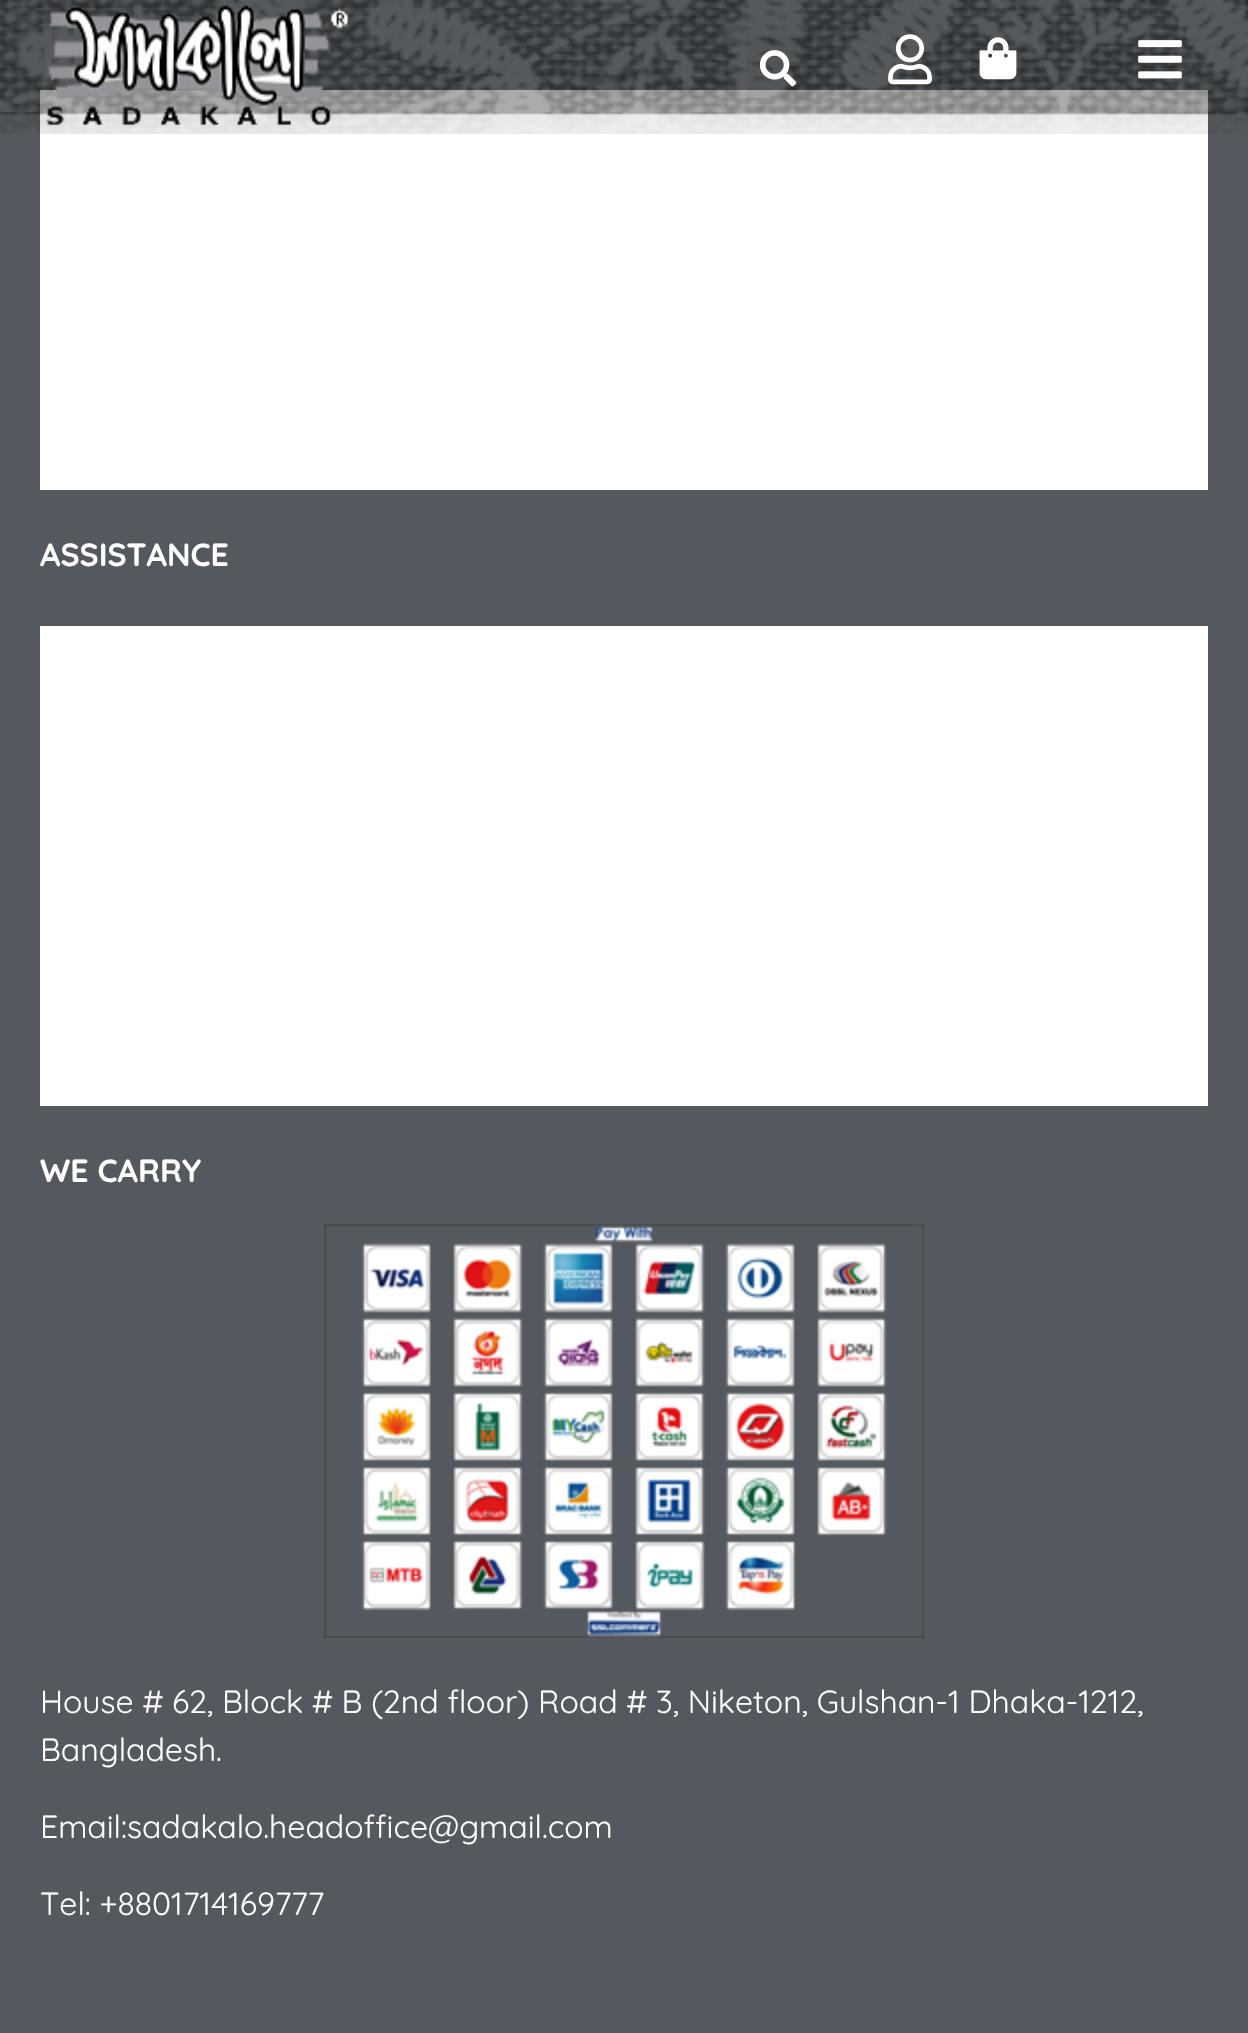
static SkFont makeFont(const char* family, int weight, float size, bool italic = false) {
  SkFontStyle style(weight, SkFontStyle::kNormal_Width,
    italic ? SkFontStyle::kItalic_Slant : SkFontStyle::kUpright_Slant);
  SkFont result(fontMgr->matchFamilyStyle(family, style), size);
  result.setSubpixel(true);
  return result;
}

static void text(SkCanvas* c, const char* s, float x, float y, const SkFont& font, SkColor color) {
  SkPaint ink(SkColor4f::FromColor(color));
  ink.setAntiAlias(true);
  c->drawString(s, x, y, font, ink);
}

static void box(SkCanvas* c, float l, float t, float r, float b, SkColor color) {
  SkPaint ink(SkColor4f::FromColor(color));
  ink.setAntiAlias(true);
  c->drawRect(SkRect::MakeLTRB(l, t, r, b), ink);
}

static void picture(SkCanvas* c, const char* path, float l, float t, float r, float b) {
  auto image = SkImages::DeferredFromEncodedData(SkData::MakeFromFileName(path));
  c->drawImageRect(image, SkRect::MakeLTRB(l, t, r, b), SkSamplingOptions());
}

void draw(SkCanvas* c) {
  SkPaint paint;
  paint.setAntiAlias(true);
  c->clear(0xff54595f);
  box(c, 40, 90, 1208, 490, 0xffffffff);
  picture(c, "img_01.png", 0, 0, 1248, 134);
  picture(c, "img_02.png", 45, 5, 351, 127);
  box(c, 746, 34, 812, 100, 0x0d000000);
  picture(c, "img_03.png", 759, 50, 797, 87);
  picture(c, "img_04.png", 888, 34, 932, 85);
  picture(c, "img_05.png", 979, 37, 1017, 80);
  picture(c, "img_06.png", 1138, 40, 1182, 79);
  SkFont face1 = makeFont("Quicksand", 700, 32);
  text(c, "ASSISTANCE", 40, 566, face1, 0xffffffff);
  box(c, 40, 626, 1208, 1106, 0xffffffff);
  text(c, "WE CARRY", 40, 1182, face1, 0xffffffff);
  picture(c, "img_07.png", 324, 1224, 924, 1638);
  SkFont face2 = makeFont("Quicksand", 400, 32);
  text(c, "House # 62, Block # B (2nd floor) Road # 3, Niketon, Gulshan-1 Dhaka-1212,", 40, 1713, face2, 0xffffffff);
  text(c, "Bangladesh.", 40, 1761, face2, 0xffffffff);
  text(c, "Email:sadakalo.headoffice@gmail.com", 40, 1838, face2, 0xffffffff);
  text(c, "Tel: +8801714169777", 40, 1915, face2, 0xffffffff);
}
